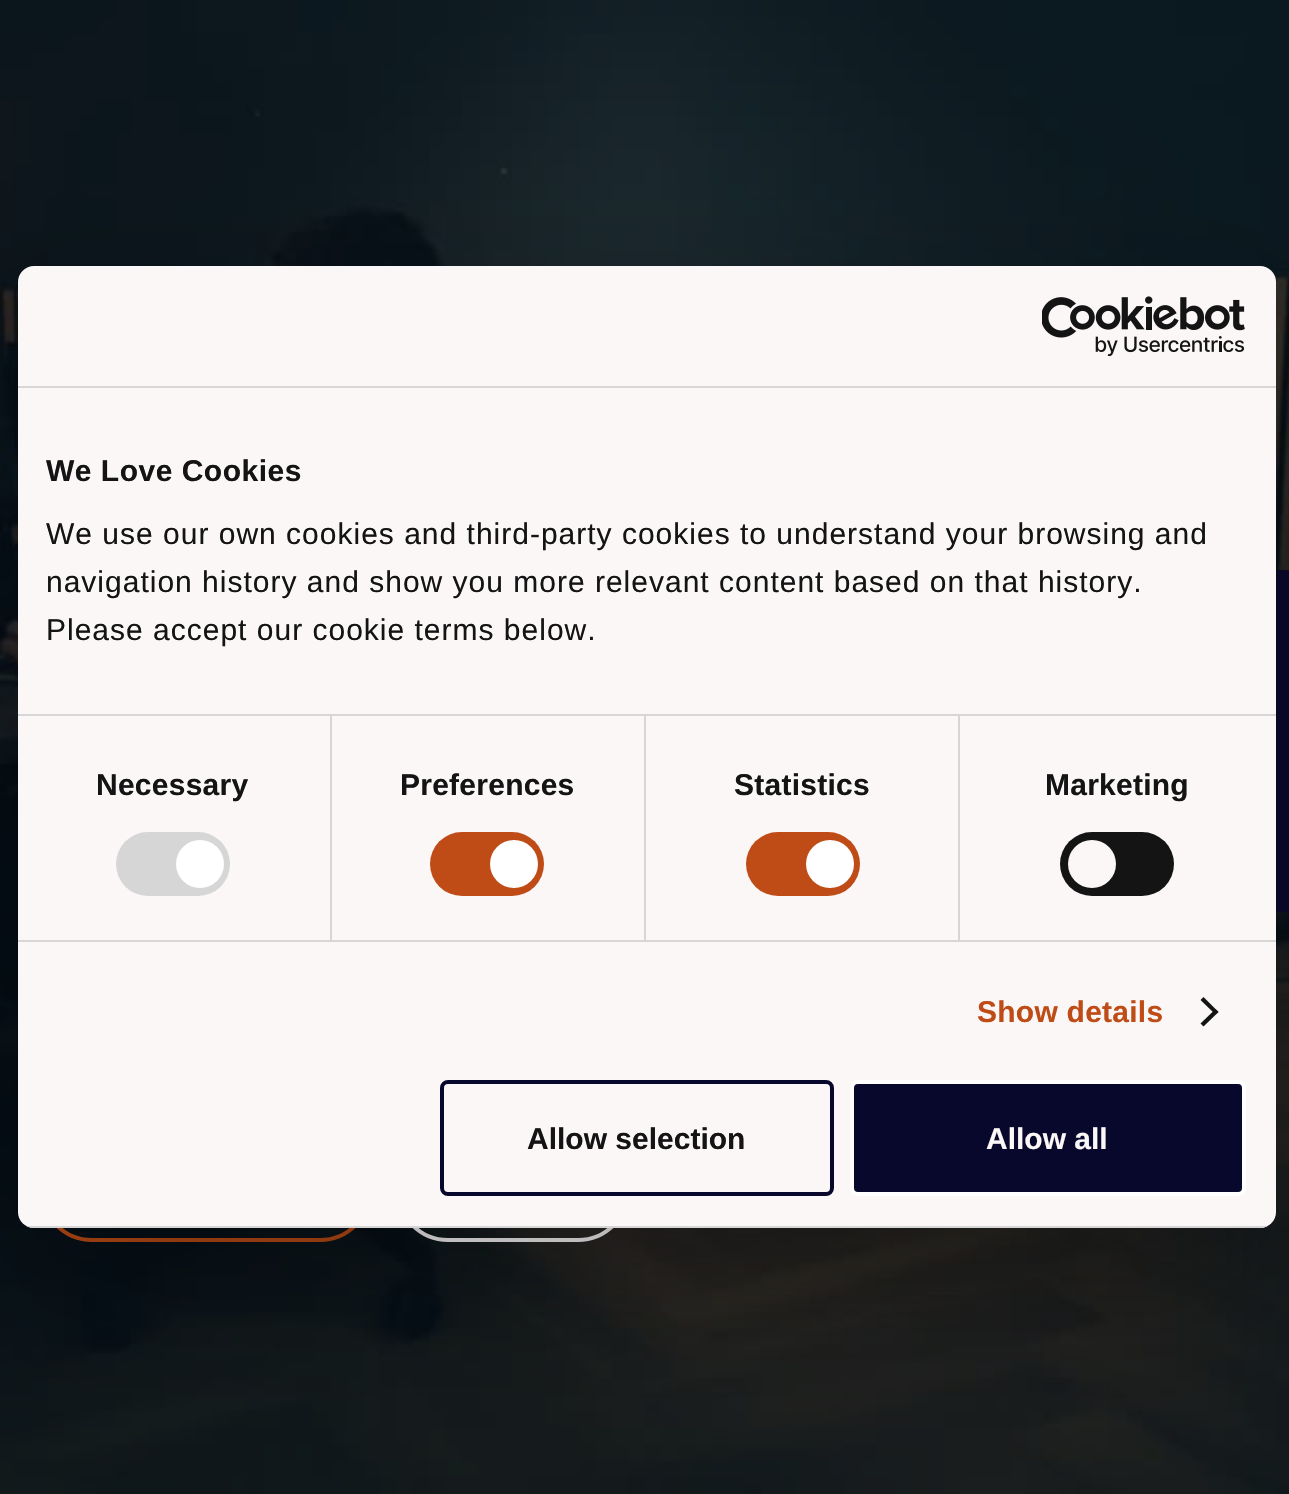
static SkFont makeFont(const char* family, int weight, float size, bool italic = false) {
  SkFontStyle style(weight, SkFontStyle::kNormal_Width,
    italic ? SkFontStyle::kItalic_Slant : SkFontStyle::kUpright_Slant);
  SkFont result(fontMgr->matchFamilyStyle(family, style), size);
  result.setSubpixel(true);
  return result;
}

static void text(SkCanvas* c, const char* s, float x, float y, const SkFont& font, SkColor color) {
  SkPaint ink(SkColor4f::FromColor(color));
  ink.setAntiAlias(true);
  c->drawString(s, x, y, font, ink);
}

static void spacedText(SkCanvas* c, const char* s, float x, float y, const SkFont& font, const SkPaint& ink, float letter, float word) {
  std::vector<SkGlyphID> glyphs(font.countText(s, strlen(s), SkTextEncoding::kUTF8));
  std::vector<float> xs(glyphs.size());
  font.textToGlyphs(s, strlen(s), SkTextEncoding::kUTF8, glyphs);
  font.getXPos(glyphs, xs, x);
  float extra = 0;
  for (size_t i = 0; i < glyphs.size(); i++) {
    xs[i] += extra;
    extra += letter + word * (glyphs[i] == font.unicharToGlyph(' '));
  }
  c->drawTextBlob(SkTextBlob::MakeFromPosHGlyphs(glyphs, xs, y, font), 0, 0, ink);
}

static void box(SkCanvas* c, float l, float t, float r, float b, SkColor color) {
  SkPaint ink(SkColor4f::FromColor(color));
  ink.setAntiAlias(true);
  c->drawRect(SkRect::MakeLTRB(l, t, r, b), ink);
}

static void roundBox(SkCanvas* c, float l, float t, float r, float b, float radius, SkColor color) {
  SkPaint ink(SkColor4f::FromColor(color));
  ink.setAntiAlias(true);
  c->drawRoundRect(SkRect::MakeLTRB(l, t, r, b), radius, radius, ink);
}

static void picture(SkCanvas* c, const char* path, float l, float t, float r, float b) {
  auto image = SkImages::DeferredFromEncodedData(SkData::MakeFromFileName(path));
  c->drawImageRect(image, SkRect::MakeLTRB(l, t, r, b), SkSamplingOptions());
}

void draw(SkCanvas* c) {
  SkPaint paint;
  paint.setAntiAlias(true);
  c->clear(0xffffffff);
  picture(c, "img_01.png", 0, 0, 1289, 1494);
  paint.setStyle(SkPaint::kStroke_Style);
  paint.setStrokeWidth(4);
  paint.setColor(0xffbe4c15);
  c->drawRoundRect(SkRect::MakeLTRB(42, 1140, 370, 1240), 50, 50, paint);
  paint.setColor(0xfffaf7f7);
  c->drawRoundRect(SkRect::MakeLTRB(398, 1140, 628, 1240), 50, 50, paint);
  picture(c, "img_03.png", 1276, 570, 1289, 912);
  paint.setStyle(SkPaint::kFill_Style);
  paint.setColor(0x4d000000);
  paint.setMaskFilter(SkMaskFilter::MakeBlur(kNormal_SkBlurStyle, 68));
  c->drawRoundRect(SkRect::MakeLTRB(18, 330, 1276, 1292), 16, 16, paint);
  paint.setMaskFilter(nullptr);
  roundBox(c, 18, 266, 1276, 1228, 16, 0xfffbf7f7);
  box(c, 18, 386, 1276, 388, 0xffd6d6d6);
  picture(c, "img_02.png", 1042, 296, 1245, 356);
  box(c, 18, 714, 1276, 716, 0xffd6d6d6);
  SkFont face1 = makeFont("Liberation Sans", 700, 30);
  paint.setColor(0xff141414);
  spacedText(c, "We Love Cookies", 46, 481, face1, paint, 0.5f, 0);
  SkFont face2 = makeFont("Liberation Sans", 400, 30);
  spacedText(c, "We use our own cookies and third-party cookies to understand your browsing and", 46, 544, face2, paint, 1, 0);
  spacedText(c, "navigation history and show you more relevant content based on that history.", 46, 592, face2, paint, 1, 0);
  spacedText(c, "Please accept our cookie terms below.", 46, 640, face2, paint, 1, 0);
  box(c, 18, 940, 1276, 942, 0xffd6d6d6);
  box(c, 330, 716, 332, 940, 0xffd6d6d6);
  spacedText(c, "Necessary", 96, 795, face1, paint, 0.25f, 0);
  roundBox(c, 116, 832, 230, 896, 32, 0xffd6d6d6);
  paint.setColor(0xffffffff);
  c->drawCircle(200, 864, 24, paint);
  box(c, 644, 716, 646, 940, 0xffd6d6d6);
  paint.setColor(0xff141414);
  spacedText(c, "Preferences", 400, 795, face1, paint, 0.25f, 0);
  roundBox(c, 430, 832, 544, 896, 32, 0xffbf4c16);
  paint.setColor(0xffffffff);
  c->drawCircle(514, 864, 24, paint);
  box(c, 958, 716, 960, 940, 0xffd6d6d6);
  paint.setColor(0xff141414);
  spacedText(c, "Statistics", 734, 795, face1, paint, 0.25f, 0);
  roundBox(c, 746, 832, 860, 896, 32, 0xffbf4c16);
  paint.setColor(0xffffffff);
  c->drawCircle(830, 864, 24, paint);
  paint.setColor(0xff141414);
  spacedText(c, "Marketing", 1045, 795, face1, paint, 0.25f, 0);
  roundBox(c, 1060, 832, 1174, 896, 32, 0xff141414);
  paint.setColor(0xfffbf7f7);
  c->drawCircle(1092, 864, 24, paint);
  paint.setColor(0xffbf4c16);
  spacedText(c, "Show details", 977, 1022, face1, paint, 0.25f, 0);
  paint.setColor(0xff141414);
  c->drawPath(SkPathBuilder().moveTo(1203.5f, 997).lineTo(1218.5f, 1012).lineTo(1215.5f, 1014.5f).lineTo(1200.5f, 1000).close().detach(), paint);
  c->drawPath(SkPathBuilder().moveTo(1215.5f, 1009).lineTo(1218.5f, 1012).lineTo(1203.5f, 1026.5f).lineTo(1200.5f, 1023.5f).close().detach(), paint);
  c->save();
  c->clipPath(SkPathBuilder().moveTo(34, 266).lineTo(1260, 266).cubicTo(1269, 266, 1276, 273, 1276, 282).lineTo(1276, 1212).cubicTo(1276, 1221, 1269, 1228, 1260, 1228).lineTo(34, 1228).cubicTo(25, 1228, 18, 1221, 18, 1212).lineTo(18, 282).cubicTo(18, 273, 25, 266, 34, 266).close().detach(), true);
  box(c, 18, 1226, 1276, 1228, 0xffd6d6d6);
  c->restore();
  paint.setStyle(SkPaint::kStroke_Style);
  paint.setColor(0xff08082d);
  c->drawRoundRect(SkRect::MakeLTRB(442, 1082, 832, 1194), 6, 6, paint);
  text(c, "Allow selection", 527, 1149, face1, 0xff141414);
  paint.setStyle(SkPaint::kFill_Style);
  c->drawRoundRect(SkRect::MakeLTRB(852, 1082, 1244, 1194), 6, 6, paint);
  paint.setStyle(SkPaint::kStroke_Style);
  paint.setColor(0xffffffff);
  c->drawRoundRect(SkRect::MakeLTRB(852, 1082, 1244, 1194), 6, 6, paint);
  text(c, "Allow all", 986, 1149, face1, 0xfffbf7f7);
}
